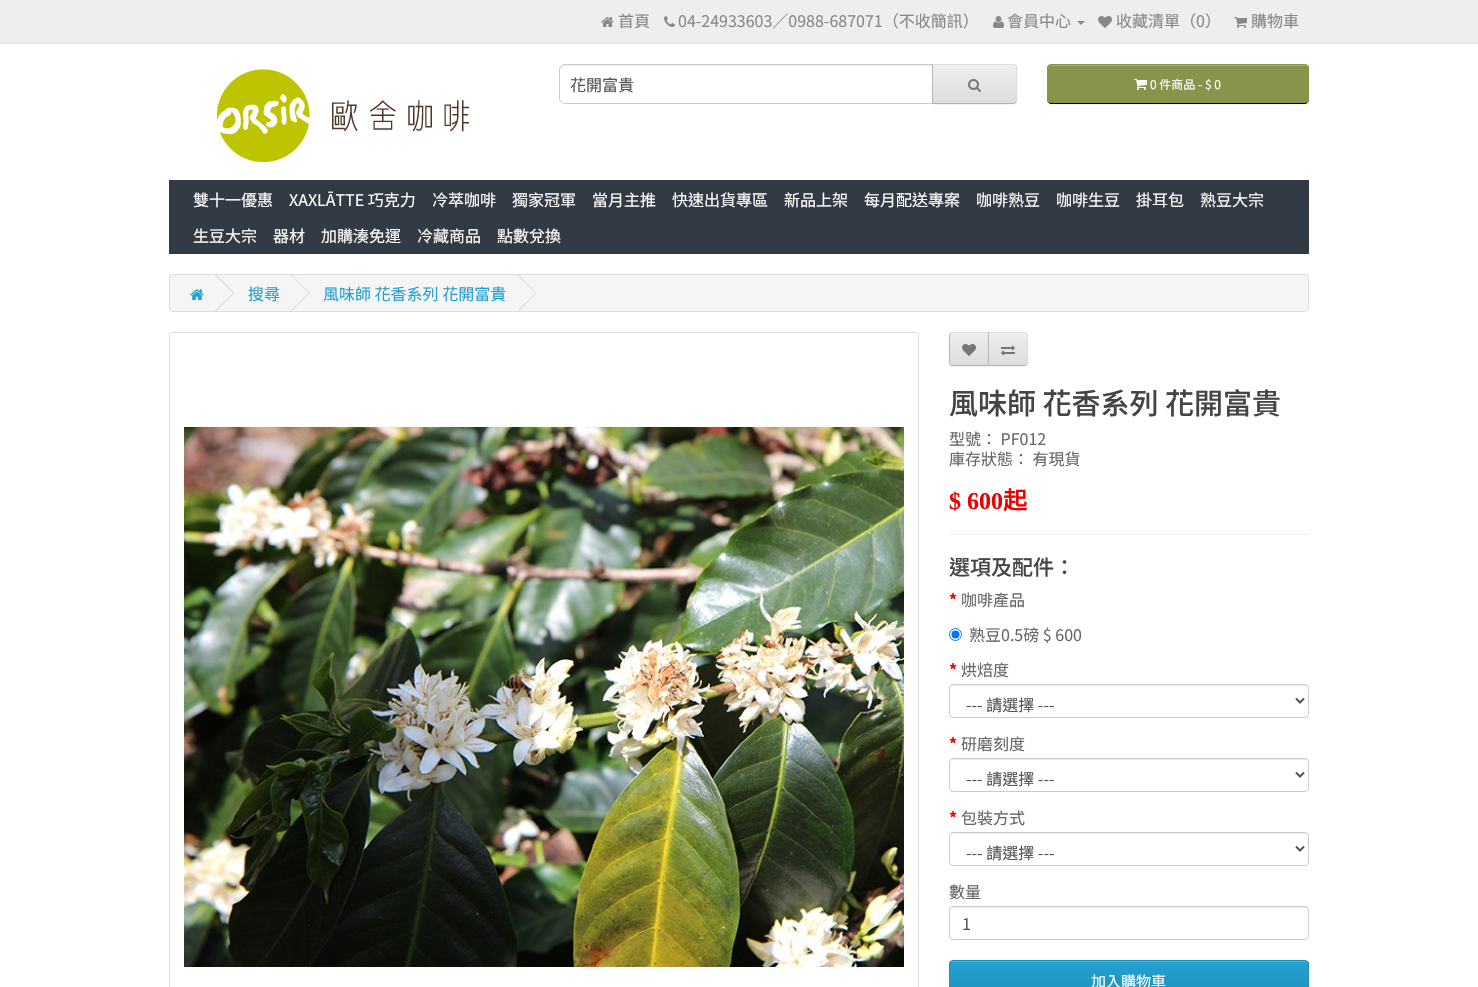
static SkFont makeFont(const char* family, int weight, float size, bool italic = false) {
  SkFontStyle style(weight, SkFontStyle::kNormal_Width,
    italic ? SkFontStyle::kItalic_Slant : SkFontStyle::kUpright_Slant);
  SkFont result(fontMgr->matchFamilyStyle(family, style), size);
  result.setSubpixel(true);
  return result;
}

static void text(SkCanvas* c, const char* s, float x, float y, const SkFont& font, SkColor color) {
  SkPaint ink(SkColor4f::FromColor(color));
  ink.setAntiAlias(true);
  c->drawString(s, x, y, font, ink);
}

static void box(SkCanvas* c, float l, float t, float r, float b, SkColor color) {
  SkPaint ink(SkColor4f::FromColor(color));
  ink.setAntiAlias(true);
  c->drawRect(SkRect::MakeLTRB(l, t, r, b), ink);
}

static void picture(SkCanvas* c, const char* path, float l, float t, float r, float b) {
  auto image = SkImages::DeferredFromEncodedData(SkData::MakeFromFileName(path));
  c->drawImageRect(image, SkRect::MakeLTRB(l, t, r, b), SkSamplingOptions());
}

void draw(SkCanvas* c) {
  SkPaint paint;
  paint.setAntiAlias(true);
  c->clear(0xffffffff);
  box(c, 0, 0, 1478, 43, 0xffeeeeee);
  box(c, 0, 43, 1478, 44, 0xffe2e2e2);
  picture(c, "img_01.png", 601, 17, 614, 27);
  SkFont face1 = makeFont("Noto Sans TC", 400, 16);
  text(c, "首頁", 618, 27, face1, 0xff888888);
  picture(c, "img_02.png", 664, 16, 675, 27);
  text(c, "04-24933603／0988-687071（不收簡訊）", 678, 27, face1, 0xff888888);
  picture(c, "img_03.png", 993, 16, 1004, 28);
  text(c, "會員中心", 1007, 27, face1, 0xff888888);
  paint.setColor(0xff888888);
  c->drawPath(SkPathBuilder().moveTo(1077, 21).lineTo(1085, 21).lineTo(1081, 25).close().detach(), paint);
  picture(c, "img_04.png", 1098, 16, 1112, 28);
  text(c, "收藏清單（0）", 1116, 27, face1, 0xff888888);
  picture(c, "img_05.png", 1234, 17, 1247, 28);
  text(c, "購物車", 1251, 27, face1, 0xff888888);
  picture(c, "img_06.png", 217, 69, 469, 162);
  paint.setColor(0xffececec);
  c->drawPath(SkPathBuilder().moveTo(565, 66).lineTo(932, 66).lineTo(932, 65).lineTo(565, 65).cubicTo(562, 65, 560, 67, 560, 70).lineTo(560, 71).cubicTo(560, 68, 562, 66, 565, 66).close().detach(), paint);
  paint.setStyle(SkPaint::kStroke_Style);
  paint.setStrokeWidth(1);
  paint.setColor(0xffcccccc);
  c->drawPath(SkPathBuilder().moveTo(565, 64.5f).lineTo(932.5f, 64.5f).lineTo(932.5f, 103.5f).lineTo(565, 103.5f).cubicTo(562, 103.5f, 559.5f, 101, 559.5f, 98).lineTo(559.5f, 70).cubicTo(559.5f, 67, 562, 64.5f, 565, 64.5f).close().detach(), paint);
  text(c, "花開富貴", 570, 91, face1, 0xff555555);
  paint.setStyle(SkPaint::kFill_Style);
  paint.setColor(0x0d000000);
  paint.setMaskFilter(SkMaskFilter::MakeBlur(kNormal_SkBlurStyle, 1));
  c->drawRoundRect(SkRect::MakeLTRB(932, 65, 1017, 105), 4, 4, paint);
  paint.setMaskFilter(nullptr);
  paint.setColor(0xffe7e7e7);
  c->drawPath(SkPathBuilder().moveTo(932, 64).lineTo(1013, 64).cubicTo(1015, 64, 1017, 66, 1017, 68).lineTo(1017, 100).cubicTo(1017, 102, 1015, 104, 1013, 104).lineTo(932, 104).close().detach(), paint);
  c->save();
  c->clipPath(SkPathBuilder().moveTo(932, 64).lineTo(1013, 64).cubicTo(1015, 64, 1017, 66, 1017, 68).lineTo(1017, 100).cubicTo(1017, 102, 1015, 104, 1013, 104).lineTo(932, 104).close().detach(), true);
  {
    const SkColor colors[] = {0xffeeeeee, 0xffdddddd};
    const float stops[] = {0, 1};
    const SkPoint ends[] = {{975, 65}, {975, 103}};
    paint.setShader(SkGradientShader::MakeLinear(ends, colors, stops, 2, SkTileMode::kClamp));
    paint.setAlpha(255);
  }
  c->drawRect(SkRect::MakeLTRB(933, 65, 1017, 103), paint);
  c->restore();
  paint.setShader(nullptr);
  paint.setColor(0xfff1f1f1);
  c->drawPath(SkPathBuilder().moveTo(933, 66).lineTo(1013, 66).cubicTo(1015, 66, 1016, 67, 1016, 69).lineTo(1016, 68).cubicTo(1016, 66, 1015, 65, 1013, 65).lineTo(933, 65).close().detach(), paint);
  paint.setColor(0xffdddddd);
  c->drawPath(SkPathBuilder().moveTo(932, 64).lineTo(933, 65).lineTo(1014, 65).lineTo(1015, 66).lineTo(1016, 65).lineTo(1013, 64).close().detach(), paint);
  c->drawPath(SkPathBuilder().moveTo(1017, 100).lineTo(1017, 68).cubicTo(1017, 67, 1016.5f, 66, 1016, 65).lineTo(1015, 66).cubicTo(1016, 66, 1016, 67, 1016, 68).lineTo(1016, 100).cubicTo(1016, 101, 1016, 102, 1015, 102).lineTo(1016, 103).cubicTo(1016.5f, 102, 1017, 101, 1017, 100).close().detach(), paint);
  paint.setColor(0xffb3b3b3);
  c->drawPath(SkPathBuilder().moveTo(1013, 104).lineTo(1016, 103).lineTo(1015, 102).lineTo(1014, 103).lineTo(933, 103).lineTo(932, 104).close().detach(), paint);
  paint.setColor(0xffb7b7b7);
  c->drawPath(SkPathBuilder().moveTo(932, 64).lineTo(932, 104).lineTo(933, 103).lineTo(933, 65).close().detach(), paint);
  picture(c, "img_07.png", 968, 79, 981, 92);
  paint.setColor(0x0d000000);
  paint.setMaskFilter(SkMaskFilter::MakeBlur(kNormal_SkBlurStyle, 1));
  c->drawRoundRect(SkRect::MakeLTRB(1047, 65, 1309, 105), 4, 4, paint);
  paint.setMaskFilter(nullptr);
  c->save();
  c->clipPath(SkPathBuilder().moveTo(1051, 64).lineTo(1305, 64).cubicTo(1307, 64, 1309, 66, 1309, 68).lineTo(1309, 100).cubicTo(1309, 102, 1307, 104, 1305, 104).lineTo(1051, 104).cubicTo(1049, 104, 1047, 102, 1047, 100).lineTo(1047, 68).cubicTo(1047, 66, 1049, 64, 1051, 64).close().detach(), true);
  box(c, 1047, 65, 1309, 103, 0xff87944c);
  c->restore();
  paint.setColor(0xff9fa970);
  c->drawPath(SkPathBuilder().moveTo(1051, 66).lineTo(1306, 66).lineTo(1308, 67).lineTo(1308, 69).lineTo(1308, 68).cubicTo(1308, 66, 1307, 65, 1305, 65).lineTo(1051, 65).cubicTo(1049, 65, 1048, 66, 1048, 68).lineTo(1048, 69).cubicTo(1048, 67, 1049, 66, 1051, 66).close().detach(), paint);
  paint.setStyle(SkPaint::kStroke_Style);
  paint.setColor(0xff000000);
  c->drawPath(SkPathBuilder().moveTo(1307.5f, 102.5f).cubicTo(1307, 103, 1306, 103.5f, 1305, 103.5f).lineTo(1051, 103.5f).cubicTo(1050, 103.5f, 1049, 103, 1048.5f, 102.5f).detach(), paint);
  paint.setColor(0xff87944c);
  c->drawPath(SkPathBuilder().moveTo(1048.5f, 102.5f).cubicTo(1048, 102, 1047.5f, 101, 1047.5f, 100).lineTo(1047.5f, 68).cubicTo(1047.5f, 67, 1048, 66, 1048.5f, 65.5f).cubicTo(1049, 65, 1050, 64.5f, 1051, 64.5f).lineTo(1305, 64.5f).cubicTo(1306, 64.5f, 1307, 65, 1307.5f, 65.5f).cubicTo(1308, 66, 1308.5f, 67, 1308.5f, 68).lineTo(1308.5f, 100).cubicTo(1308.5f, 101, 1308, 102, 1307.5f, 102.5f).detach(), paint);
  picture(c, "img_08.png", 1134, 79, 1147, 90);
  SkFont face2 = makeFont("Noto Sans TC", 400, 12);
  text(c, "0 件商品 - $ 0", 1150, 89, face2, 0xffffffff);
  box(c, 169, 180, 1309, 254, 0xff323a45);
  text(c, "雙十一優惠", 193, 206, face1, 0xffffffff);
  text(c, "XAXLĀTTE 巧克力", 289, 206, face1, 0xffffffff);
  text(c, "冷萃咖啡", 432, 206, face1, 0xffffffff);
  text(c, "獨家冠軍", 512, 206, face1, 0xffffffff);
  text(c, "當月主推", 592, 206, face1, 0xffffffff);
  text(c, "快速出貨專區", 672, 206, face1, 0xffffffff);
  text(c, "新品上架", 784, 206, face1, 0xffffffff);
  text(c, "每月配送專案", 864, 206, face1, 0xffffffff);
  text(c, "咖啡熟豆", 976, 206, face1, 0xffffffff);
  text(c, "咖啡生豆", 1056, 206, face1, 0xffffffff);
  text(c, "掛耳包", 1136, 206, face1, 0xffffffff);
  text(c, "熟豆大宗", 1200, 206, face1, 0xffffffff);
  text(c, "生豆大宗", 193, 242, face1, 0xffffffff);
  text(c, "器材", 273, 242, face1, 0xffffffff);
  text(c, "加購湊免運", 321, 242, face1, 0xffffffff);
  text(c, "冷藏商品", 417, 242, face1, 0xffffffff);
  text(c, "點數兌換", 497, 242, face1, 0xffffffff);
  paint.setStyle(SkPaint::kFill_Style);
  paint.setColor(0xfff5f5f5);
  c->drawRoundRect(SkRect::MakeLTRB(169.5f, 274.5f, 1308.5f, 311.5f), 3.5f, 3.5f, paint);
  paint.setStyle(SkPaint::kStroke_Style);
  paint.setColor(0xffdddddd);
  c->drawRoundRect(SkRect::MakeLTRB(169.5f, 274.5f, 1308.5f, 311.5f), 3.5f, 3.5f, paint);
  picture(c, "img_09.png", 190, 289, 204, 300);
  paint.setStyle(SkPaint::kFill_Style);
  c->drawPath(SkPathBuilder().moveTo(215, 275.5f).lineTo(216, 274.5f).lineTo(234.5f, 293).lineTo(233.5f, 293.5f).close().detach(), paint);
  c->drawPath(SkPathBuilder().moveTo(215, 310.5f).lineTo(233.5f, 292.5f).lineTo(234.5f, 293).lineTo(216, 311.5f).close().detach(), paint);
  text(c, "搜尋", 248, 300, face1, 0xff23a1d1);
  c->drawPath(SkPathBuilder().moveTo(291, 275.5f).lineTo(291.5f, 274.5f).lineTo(310, 293).lineTo(309, 293.5f).close().detach(), paint);
  c->drawPath(SkPathBuilder().moveTo(291, 310.5f).lineTo(309, 292.5f).lineTo(310, 293).lineTo(291.5f, 311.5f).close().detach(), paint);
  text(c, "風味師 花香系列 花開富貴", 323, 300, face1, 0xff23a1d1);
  c->drawPath(SkPathBuilder().moveTo(517.5f, 275.5f).lineTo(518.5f, 274.5f).lineTo(536.5f, 293).lineTo(536, 293.5f).close().detach(), paint);
  c->drawPath(SkPathBuilder().moveTo(517.5f, 310.5f).lineTo(536, 292.5f).lineTo(536.5f, 293).lineTo(518.5f, 311.5f).close().detach(), paint);
  paint.setStyle(SkPaint::kStroke_Style);
  c->drawRoundRect(SkRect::MakeLTRB(169.5f, 332.5f, 918.5f, 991.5f), 3.5f, 3.5f, paint);
  picture(c, "img_10.png", 184, 417, 904, 977);
  paint.setStyle(SkPaint::kFill_Style);
  paint.setColor(0x0d000000);
  paint.setMaskFilter(SkMaskFilter::MakeBlur(kNormal_SkBlurStyle, 1));
  c->drawRoundRect(SkRect::MakeLTRB(949, 333, 989, 367), 4, 4, paint);
  paint.setMaskFilter(nullptr);
  c->save();
  c->clipPath(SkPathBuilder().moveTo(953, 332).lineTo(989, 332).lineTo(989, 366).lineTo(953, 366).cubicTo(951, 366, 949, 364, 949, 362).lineTo(949, 336).cubicTo(949, 334, 951, 332, 953, 332).close().detach(), true);
  {
    const SkColor colors[] = {0xffeeeeee, 0xffdddddd};
    const float stops[] = {0, 1};
    const SkPoint ends[] = {{969, 333}, {969, 365}};
    paint.setShader(SkGradientShader::MakeLinear(ends, colors, stops, 2, SkTileMode::kClamp));
    paint.setAlpha(255);
  }
  c->drawRect(SkRect::MakeLTRB(949, 333, 988, 365), paint);
  c->restore();
  paint.setShader(nullptr);
  paint.setColor(0xfff1f1f1);
  c->drawPath(SkPathBuilder().moveTo(953, 334).lineTo(988, 334).lineTo(988, 333).lineTo(953, 333).cubicTo(951.5f, 333, 950, 334.5f, 950, 336).lineTo(950, 337).cubicTo(950, 335, 951, 334, 953, 334).close().detach(), paint);
  paint.setColor(0xffdddddd);
  c->drawPath(SkPathBuilder().moveTo(953, 332).cubicTo(952, 332, 951, 332.5f, 950, 333).lineTo(951, 334).cubicTo(951, 333, 952, 333, 953, 333).lineTo(988, 333).lineTo(989, 332).close().detach(), paint);
  paint.setColor(0xffb3b3b3);
  c->drawPath(SkPathBuilder().moveTo(989, 366).lineTo(988, 365).lineTo(953, 365).cubicTo(952, 365, 951, 365, 951, 364).lineTo(950, 365).cubicTo(951, 365.5f, 952, 366, 953, 366).close().detach(), paint);
  paint.setColor(0xffb7b7b7);
  c->drawPath(SkPathBuilder().moveTo(949, 336).lineTo(949, 362).cubicTo(949, 363, 949.5f, 364, 950, 365).lineTo(951, 364).cubicTo(950, 364, 950, 363, 950, 362).lineTo(950, 336).cubicTo(950, 335, 950, 334, 951, 334).lineTo(950, 333).cubicTo(949.5f, 334, 949, 335, 949, 336).close().detach(), paint);
  picture(c, "img_11.png", 962, 344, 976, 356);
  paint.setColor(0x0d000000);
  paint.setMaskFilter(SkMaskFilter::MakeBlur(kNormal_SkBlurStyle, 1));
  c->drawRoundRect(SkRect::MakeLTRB(988, 333, 1028, 367), 4, 4, paint);
  paint.setMaskFilter(nullptr);
  c->save();
  c->clipPath(SkPathBuilder().moveTo(988, 332).lineTo(1024, 332).cubicTo(1026, 332, 1028, 334, 1028, 336).lineTo(1028, 362).cubicTo(1028, 364, 1026, 366, 1024, 366).lineTo(988, 366).close().detach(), true);
  {
    const SkColor colors[] = {0xffeeeeee, 0xffdddddd};
    const float stops[] = {0, 1};
    const SkPoint ends[] = {{1008, 333}, {1008, 365}};
    paint.setShader(SkGradientShader::MakeLinear(ends, colors, stops, 2, SkTileMode::kClamp));
    paint.setAlpha(255);
  }
  c->drawRect(SkRect::MakeLTRB(989, 333, 1028, 365), paint);
  c->restore();
  paint.setShader(nullptr);
  paint.setColor(0xfff1f1f1);
  c->drawPath(SkPathBuilder().moveTo(989, 334).lineTo(1024, 334).cubicTo(1026, 334, 1027, 335, 1027, 337).lineTo(1027, 336).cubicTo(1027, 334.5f, 1025.5f, 333, 1024, 333).lineTo(989, 333).close().detach(), paint);
  paint.setColor(0xffdddddd);
  c->drawPath(SkPathBuilder().moveTo(988, 332).lineTo(989, 333).lineTo(1024, 333).cubicTo(1025, 333, 1026, 333, 1026, 334).lineTo(1027, 333).cubicTo(1026, 332.5f, 1025, 332, 1024, 332).close().detach(), paint);
  c->drawPath(SkPathBuilder().moveTo(1028, 362).lineTo(1028, 336).cubicTo(1028, 335, 1027.5f, 334, 1027, 333).lineTo(1026, 334).cubicTo(1027, 334, 1027, 335, 1027, 336).lineTo(1027, 362).cubicTo(1027, 363, 1027, 364, 1026, 364).lineTo(1027, 365).cubicTo(1027.5f, 364, 1028, 363, 1028, 362).close().detach(), paint);
  paint.setColor(0xffb3b3b3);
  c->drawPath(SkPathBuilder().moveTo(1024, 366).cubicTo(1025, 366, 1026, 365.5f, 1027, 365).lineTo(1026, 364).cubicTo(1026, 365, 1025, 365, 1024, 365).lineTo(989, 365).lineTo(988, 366).close().detach(), paint);
  paint.setColor(0xffb7b7b7);
  c->drawPath(SkPathBuilder().moveTo(988, 332).lineTo(988, 366).lineTo(989, 365).lineTo(989, 333).close().detach(), paint);
  picture(c, "img_12.png", 1001, 345, 1015, 356);
  SkFont face3 = makeFont("Noto Sans TC", 500, 29);
  text(c, "風味師 花香系列 花開富貴", 949, 414, face3, 0xff444444);
  text(c, "型號： PF012", 949, 445, face1, 0xff666666);
  text(c, "庫存狀態： 有現貨", 949, 465, face1, 0xff666666);
  SkFont face4 = makeFont("Liberation Serif", 700, 24);
  text(c, "$ 600", 949, 509, face4, 0xffee0000);
  SkFont face5 = makeFont("Noto Sans CJK TC", 700, 24);
  text(c, "起", 1003, 509, face5, 0xffee0000);
  box(c, 949, 534, 1309, 535, 0xffeeeeee);
  SkFont face6 = makeFont("Noto Sans TC", 500, 21);
  text(c, "選項及配件：", 949, 575, face6, 0xff444444);
  SkFont face7 = makeFont("Noto Sans TC", 700, 16);
  text(c, "*", 949, 606, face7, 0xffff0000);
  text(c, "咖啡產品", 961, 606, face1, 0xff666666);
  paint.setStyle(SkPaint::kStroke_Style);
  paint.setColor(0xff0075ff);
  c->drawCircle(955.5f, 634.5f, 6, paint);
  paint.setStyle(SkPaint::kFill_Style);
  c->drawCircle(955.5f, 634.5f, 4, paint);
  text(c, "熟豆0.5磅 $ 600", 969, 641, face1, 0xff666666);
  text(c, "*", 949, 676, face7, 0xffff0000);
  text(c, "烘焙度", 961, 676, face1, 0xff666666);
  paint.setColor(0xffececec);
  c->drawPath(SkPathBuilder().moveTo(953, 686).lineTo(1305, 686).cubicTo(1307, 686, 1308, 687, 1308, 689).cubicTo(1308, 687, 1307, 685, 1305, 685).lineTo(953, 685).lineTo(951, 686).lineTo(950, 689).cubicTo(950, 687, 951, 686, 953, 686).close().detach(), paint);
  paint.setStyle(SkPaint::kStroke_Style);
  paint.setColor(0xffcccccc);
  c->drawRoundRect(SkRect::MakeLTRB(949.5f, 684.5f, 1308.5f, 717.5f), 3.5f, 3.5f, paint);
  paint.setStrokeWidth(2);
  paint.setColor(0xff555555);
  c->drawPath(SkPathBuilder().moveTo(1296, 698.5f).lineTo(1300, 702.5f).lineTo(1304, 698.5f).detach(), paint);
  text(c, "--- 請選擇 ---", 966, 711, face1, 0xff555555);
  text(c, "*", 949, 750, face7, 0xffff0000);
  text(c, "研磨刻度", 961, 750, face1, 0xff666666);
  paint.setStyle(SkPaint::kFill_Style);
  paint.setColor(0xffececec);
  c->drawPath(SkPathBuilder().moveTo(953, 760).lineTo(1305, 760).cubicTo(1307, 760, 1308, 761, 1308, 763).cubicTo(1308, 761, 1307, 759, 1305, 759).lineTo(953, 759).lineTo(951, 760).lineTo(950, 763).cubicTo(950, 761, 951, 760, 953, 760).close().detach(), paint);
  paint.setStyle(SkPaint::kStroke_Style);
  paint.setStrokeWidth(1);
  paint.setColor(0xffcccccc);
  c->drawRoundRect(SkRect::MakeLTRB(949.5f, 758.5f, 1308.5f, 791.5f), 3.5f, 3.5f, paint);
  paint.setStrokeWidth(2);
  paint.setColor(0xff555555);
  c->drawPath(SkPathBuilder().moveTo(1296, 772.5f).lineTo(1300, 776.5f).lineTo(1304, 772.5f).detach(), paint);
  text(c, "--- 請選擇 ---", 966, 785, face1, 0xff555555);
  text(c, "*", 949, 824, face7, 0xffff0000);
  text(c, "包裝方式", 961, 824, face1, 0xff666666);
  paint.setStyle(SkPaint::kFill_Style);
  paint.setColor(0xffececec);
  c->drawPath(SkPathBuilder().moveTo(953, 834).lineTo(1305, 834).cubicTo(1307, 834, 1308, 835, 1308, 837).cubicTo(1308, 835, 1307, 833, 1305, 833).lineTo(953, 833).lineTo(951, 834).lineTo(950, 837).cubicTo(950, 835, 951, 834, 953, 834).close().detach(), paint);
  paint.setStyle(SkPaint::kStroke_Style);
  paint.setStrokeWidth(1);
  paint.setColor(0xffcccccc);
  c->drawRoundRect(SkRect::MakeLTRB(949.5f, 832.5f, 1308.5f, 865.5f), 3.5f, 3.5f, paint);
  paint.setStrokeWidth(2);
  paint.setColor(0xff555555);
  c->drawPath(SkPathBuilder().moveTo(1296, 846.5f).lineTo(1300, 850.5f).lineTo(1304, 846.5f).detach(), paint);
  text(c, "--- 請選擇 ---", 966, 859, face1, 0xff555555);
  text(c, "數量", 949, 898, face1, 0xff666666);
  paint.setStyle(SkPaint::kFill_Style);
  paint.setColor(0xffececec);
  c->drawPath(SkPathBuilder().moveTo(953, 908).lineTo(1305, 908).cubicTo(1307, 908, 1308, 909, 1308, 911).cubicTo(1308, 909, 1307, 907, 1305, 907).lineTo(953, 907).lineTo(951, 908).lineTo(950, 911).cubicTo(950, 909, 951, 908, 953, 908).close().detach(), paint);
  paint.setStyle(SkPaint::kStroke_Style);
  paint.setStrokeWidth(1);
  paint.setColor(0xffcccccc);
  c->drawRoundRect(SkRect::MakeLTRB(949.5f, 906.5f, 1308.5f, 939.5f), 3.5f, 3.5f, paint);
  text(c, "1", 962, 930, face1, 0xff555555);
  c->save();
  c->clipPath(SkPathBuilder().moveTo(953, 960).lineTo(1305, 960).cubicTo(1307, 960, 1309, 962, 1309, 964).lineTo(1309, 998).cubicTo(1309, 1000, 1307, 1002, 1305, 1002).lineTo(953, 1002).cubicTo(951, 1002, 949, 1000, 949, 998).lineTo(949, 964).cubicTo(949, 962, 951, 960, 953, 960).close().detach(), true);
  paint.setStyle(SkPaint::kFill_Style);
  {
    const SkColor colors[] = {0xff23a1d1, 0xff1f90bb};
    const float stops[] = {0, 1};
    const SkPoint ends[] = {{1129, 961}, {1129, 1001}};
    paint.setShader(SkGradientShader::MakeLinear(ends, colors, stops, 2, SkTileMode::kClamp));
    paint.setAlpha(255);
  }
  c->drawRect(SkRect::MakeLTRB(949, 961, 1309, 987), paint);
  c->restore();
  paint.setShader(nullptr);
  paint.setColor(0xff4fb4da);
  c->drawPath(SkPathBuilder().moveTo(953, 962).lineTo(1305, 962).cubicTo(1307, 962, 1308, 963, 1308, 965).cubicTo(1308, 963, 1307, 961, 1305, 961).lineTo(953, 961).lineTo(951, 962).lineTo(950, 965).cubicTo(950, 963, 951, 962, 953, 962).close().detach(), paint);
  paint.setStyle(SkPaint::kStroke_Style);
  paint.setColor(0xff1f90bb);
  c->drawPath(SkPathBuilder().moveTo(950.5f, 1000.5f).cubicTo(950, 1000, 949.5f, 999, 949.5f, 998).lineTo(949.5f, 964).cubicTo(949.5f, 963, 950, 962, 950.5f, 961.5f).cubicTo(951, 961, 952, 960.5f, 953, 960.5f).lineTo(1305, 960.5f).cubicTo(1306, 960.5f, 1307, 961, 1307.5f, 961.5f).cubicTo(1308, 962, 1308.5f, 963, 1308.5f, 964).lineTo(1308.5f, 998).cubicTo(1308.5f, 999, 1308, 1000, 1307.5f, 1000.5f).detach(), paint);
  SkFont face8 = makeFont("Noto Sans TC", 400, 15);
  text(c, "加入購物車", 1091, 987, face8, 0xffffffff);
}
